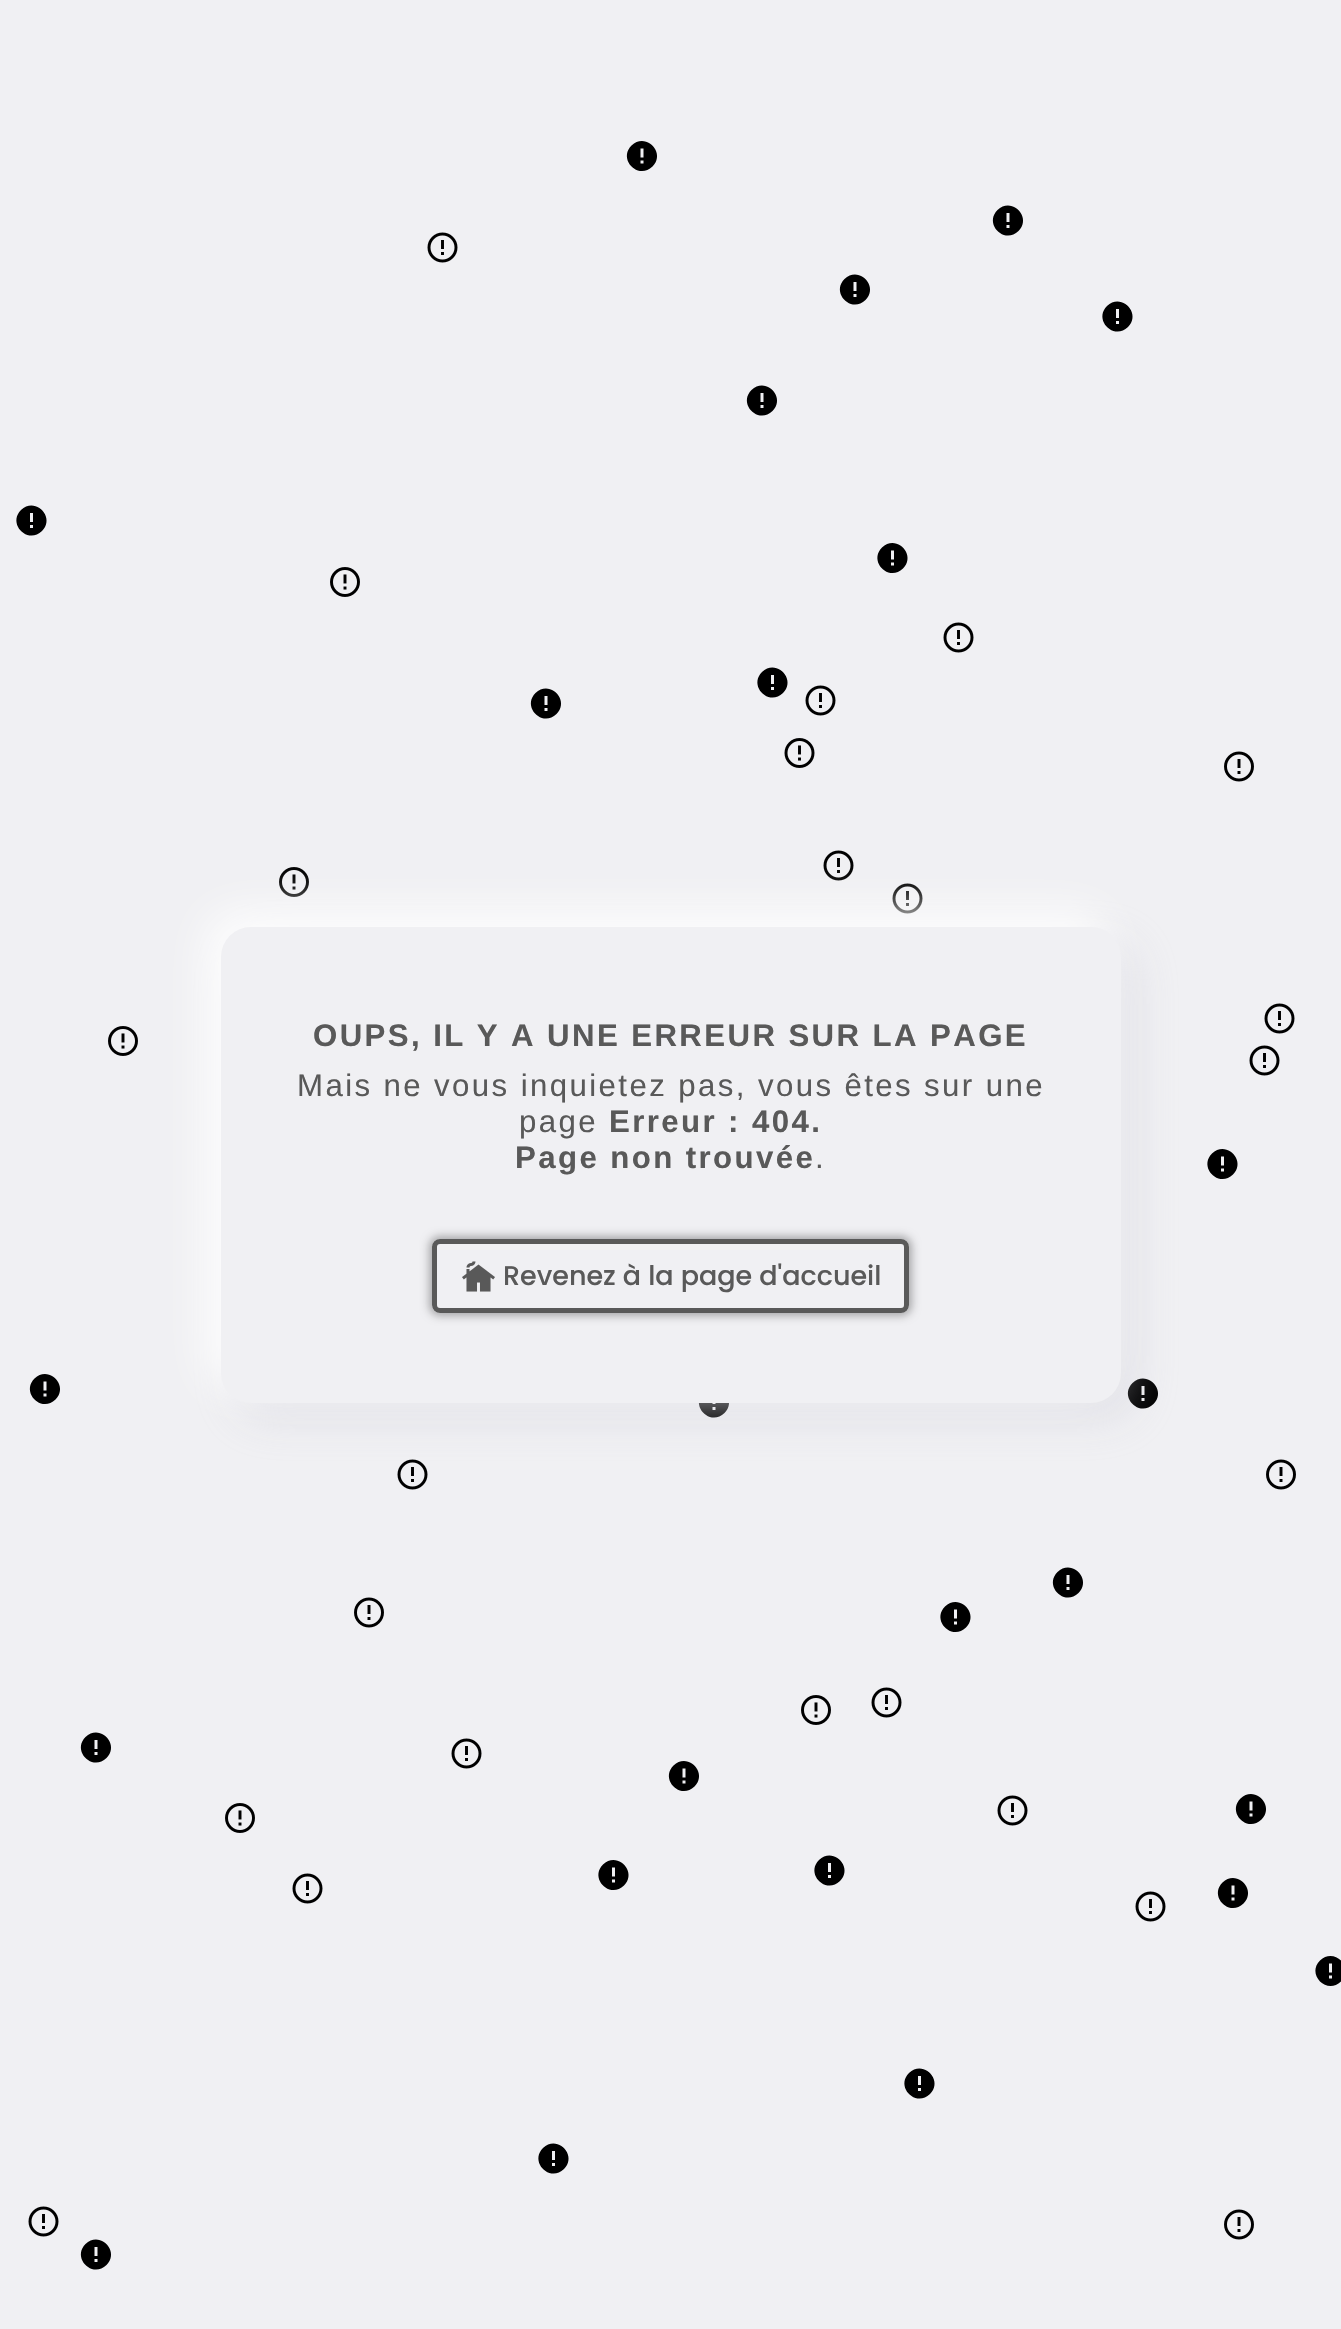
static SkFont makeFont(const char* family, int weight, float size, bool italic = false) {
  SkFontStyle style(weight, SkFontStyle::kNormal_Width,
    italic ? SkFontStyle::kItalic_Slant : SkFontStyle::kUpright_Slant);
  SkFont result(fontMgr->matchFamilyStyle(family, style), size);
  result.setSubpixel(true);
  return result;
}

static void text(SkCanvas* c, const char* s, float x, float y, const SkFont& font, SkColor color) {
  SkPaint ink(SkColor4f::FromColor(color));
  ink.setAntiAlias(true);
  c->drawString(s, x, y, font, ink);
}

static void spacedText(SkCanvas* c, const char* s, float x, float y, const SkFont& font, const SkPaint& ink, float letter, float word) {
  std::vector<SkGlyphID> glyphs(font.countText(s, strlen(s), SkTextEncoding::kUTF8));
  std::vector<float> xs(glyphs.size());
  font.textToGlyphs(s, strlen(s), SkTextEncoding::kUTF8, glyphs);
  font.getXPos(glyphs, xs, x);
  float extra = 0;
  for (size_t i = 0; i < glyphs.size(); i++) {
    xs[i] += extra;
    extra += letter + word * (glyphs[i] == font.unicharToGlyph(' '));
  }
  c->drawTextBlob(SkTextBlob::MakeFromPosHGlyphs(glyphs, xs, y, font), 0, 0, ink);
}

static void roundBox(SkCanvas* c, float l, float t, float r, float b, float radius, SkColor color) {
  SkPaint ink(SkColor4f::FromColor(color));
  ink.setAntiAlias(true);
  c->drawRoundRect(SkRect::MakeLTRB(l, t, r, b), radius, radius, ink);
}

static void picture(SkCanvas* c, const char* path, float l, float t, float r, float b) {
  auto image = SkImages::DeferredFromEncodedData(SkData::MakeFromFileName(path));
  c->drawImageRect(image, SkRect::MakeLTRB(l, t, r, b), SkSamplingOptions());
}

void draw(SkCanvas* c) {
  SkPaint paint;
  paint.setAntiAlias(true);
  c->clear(0xfff0f0f3);
  paint.setColor(0xff000000);
  c->drawPath(SkPathBuilder().moveTo(643.5f, 157.5f).lineTo(643.5f, 148.5f).lineTo(640.5f, 148.5f).lineTo(640.5f, 157.5f).close().moveTo(643.5f, 163.5f).lineTo(643.5f, 160.5f).lineTo(640.5f, 160.5f).lineTo(640.5f, 163.5f).close().moveTo(631.5f, 145.5f).cubicTo(645.5f, 131.5f, 666.5f, 152.5f, 652.5f, 166.5f).cubicTo(638.5f, 180.5f, 617.5f, 159.5f, 631.5f, 145.5f).close().detach(), paint);
  c->drawPath(SkPathBuilder().moveTo(1009.5f, 222).lineTo(1009.5f, 213).lineTo(1006.5f, 213).lineTo(1006.5f, 222).close().moveTo(1009.5f, 228).lineTo(1009.5f, 225).lineTo(1006.5f, 225).lineTo(1006.5f, 228).close().moveTo(997.5f, 210).cubicTo(1011.5f, 196, 1032.5f, 217, 1018.5f, 231).cubicTo(1004.5f, 245, 983.5f, 224, 997.5f, 210).close().detach(), paint);
  picture(c, "img_01.png", 427, 232, 458, 263);
  c->drawPath(SkPathBuilder().moveTo(856.5f, 291).lineTo(856.5f, 282).lineTo(853.5f, 282).lineTo(853.5f, 291).close().moveTo(856.5f, 297).lineTo(856.5f, 294).lineTo(853.5f, 294).lineTo(853.5f, 297).close().moveTo(844.5f, 279).cubicTo(858.5f, 265, 879.5f, 286, 865.5f, 300).cubicTo(851.5f, 314, 830.5f, 293, 844.5f, 279).close().detach(), paint);
  c->drawPath(SkPathBuilder().moveTo(1119, 318).lineTo(1119, 309).lineTo(1116, 309).lineTo(1116, 318).close().moveTo(1119, 324).lineTo(1119, 321).lineTo(1116, 321).lineTo(1116, 324).close().moveTo(1107, 306).cubicTo(1121, 292, 1142, 313, 1128, 327).cubicTo(1114, 341, 1093, 320, 1107, 306).close().detach(), paint);
  c->drawPath(SkPathBuilder().moveTo(763.5f, 402).lineTo(763.5f, 393).lineTo(760.5f, 393).lineTo(760.5f, 402).close().moveTo(763.5f, 408).lineTo(763.5f, 405).lineTo(760.5f, 405).lineTo(760.5f, 408).close().moveTo(751.5f, 390).cubicTo(765.5f, 376, 786.5f, 397, 772.5f, 411).cubicTo(758.5f, 425, 737.5f, 404, 751.5f, 390).close().detach(), paint);
  c->drawPath(SkPathBuilder().moveTo(33, 522).lineTo(33, 513).lineTo(30, 513).lineTo(30, 522).close().moveTo(33, 528).lineTo(33, 525).lineTo(30, 525).lineTo(30, 528).close().moveTo(21, 510).cubicTo(35, 496, 56, 517, 42, 531).cubicTo(28, 545, 7, 524, 21, 510).close().detach(), paint);
  c->drawPath(SkPathBuilder().moveTo(894, 559.5f).lineTo(894, 550.5f).lineTo(891, 550.5f).lineTo(891, 559.5f).close().moveTo(894, 565.5f).lineTo(894, 562.5f).lineTo(891, 562.5f).lineTo(891, 565.5f).close().moveTo(882, 547.5f).cubicTo(896, 533.5f, 917, 554.5f, 903, 568.5f).cubicTo(889, 582.5f, 868, 561.5f, 882, 547.5f).close().detach(), paint);
  picture(c, "img_02.png", 330, 567, 360, 597);
  picture(c, "img_01.png", 943, 622, 974, 653);
  c->drawPath(SkPathBuilder().moveTo(547.5f, 705).lineTo(547.5f, 696).lineTo(544.5f, 696).lineTo(544.5f, 705).close().moveTo(547.5f, 711).lineTo(547.5f, 708).lineTo(544.5f, 708).lineTo(544.5f, 711).close().moveTo(535.5f, 693).cubicTo(549.5f, 679, 570.5f, 700, 556.5f, 714).cubicTo(542.5f, 728, 521.5f, 707, 535.5f, 693).close().detach(), paint);
  c->drawPath(SkPathBuilder().moveTo(774, 684).lineTo(774, 675).lineTo(771, 675).lineTo(771, 684).close().moveTo(774, 690).lineTo(774, 687).lineTo(771, 687).lineTo(771, 690).close().moveTo(762, 672).cubicTo(776, 658, 797, 679, 783, 693).cubicTo(769, 707, 748, 686, 762, 672).close().detach(), paint);
  picture(c, "img_01.png", 805, 685, 836, 716);
  picture(c, "img_03.png", 784, 738, 815, 768);
  picture(c, "img_04.png", 1224, 751, 1254, 782);
  picture(c, "img_02.png", 279, 867, 309, 897);
  picture(c, "img_01.png", 823, 850, 854, 881);
  picture(c, "img_01.png", 892, 883, 923, 914);
  picture(c, "img_01.png", 1264, 1003, 1295, 1034);
  picture(c, "img_02.png", 108, 1026, 138, 1056);
  c->drawPath(SkPathBuilder().moveTo(715.5f, 1404).lineTo(715.5f, 1395).lineTo(712.5f, 1395).lineTo(712.5f, 1404).close().moveTo(715.5f, 1410).lineTo(715.5f, 1407).lineTo(712.5f, 1407).lineTo(712.5f, 1410).close().moveTo(703.5f, 1392).cubicTo(717.5f, 1378, 738.5f, 1399, 724.5f, 1413).cubicTo(710.5f, 1427, 689.5f, 1406, 703.5f, 1392).close().detach(), paint);
  c->drawPath(SkPathBuilder().moveTo(1144.5f, 1395).lineTo(1144.5f, 1386).lineTo(1141.5f, 1386).lineTo(1141.5f, 1395).close().moveTo(1144.5f, 1401).lineTo(1144.5f, 1398).lineTo(1141.5f, 1398).lineTo(1141.5f, 1401).close().moveTo(1132.5f, 1383).cubicTo(1146.5f, 1369, 1167.5f, 1390, 1153.5f, 1404).cubicTo(1139.5f, 1418, 1118.5f, 1397, 1132.5f, 1383).close().detach(), paint);
  picture(c, "img_01.png", 397, 1459, 428, 1490);
  paint.setColor(0x40aeaec0);
  paint.setMaskFilter(SkMaskFilter::MakeBlur(kNormal_SkBlurStyle, 22.5f));
  c->drawRoundRect(SkRect::MakeLTRB(236, 942, 1136, 1418), 30, 30, paint);
  paint.setMaskFilter(nullptr);
  paint.setColor(0xffffffff);
  paint.setMaskFilter(SkMaskFilter::MakeBlur(kNormal_SkBlurStyle, 22.5f));
  c->drawRoundRect(SkRect::MakeLTRB(206, 912, 1106, 1388), 30, 30, paint);
  paint.setMaskFilter(nullptr);
  roundBox(c, 221, 927, 1121, 1403, 30, 0xfff0f0f3);
  SkFont face1 = makeFont("Liberation Sans", 700, 31.2f);
  paint.setColor(0xff595959);
  spacedText(c, "OUPS, IL Y A UNE ERREUR SUR LA PAGE", 313, 1046, face1, paint, 2.4f, 0);
  SkFont face2 = makeFont("Liberation Sans", 400, 31.2f);
  spacedText(c, "Mais ne vous inquietez pas, vous êtes sur une", 297, 1096, face2, paint, 2.4f, 0);
  spacedText(c, "page", 519, 1132, face2, paint, 2.4f, 0);
  spacedText(c, "Erreur : 404.", 609, 1132, face1, paint, 2.4f, 0);
  spacedText(c, "Page non trouvée", 515, 1168, face1, paint, 2.4f, 0);
  spacedText(c, ".", 815, 1168, face2, paint, 2.4f, 0);
  c->save();
  c->clipPath(SkPathBuilder(SkPathFillType::kEvenOdd).moveTo(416, 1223).lineTo(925, 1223).lineTo(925, 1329).lineTo(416, 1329).close().moveTo(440, 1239).lineTo(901, 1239).cubicTo(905.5f, 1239, 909, 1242.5f, 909, 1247).lineTo(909, 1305).cubicTo(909, 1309.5f, 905.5f, 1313, 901, 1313).lineTo(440, 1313).cubicTo(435.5f, 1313, 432, 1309.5f, 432, 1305).lineTo(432, 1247).cubicTo(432, 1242.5f, 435.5f, 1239, 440, 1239).close().detach(), true);
  paint.setColor(0x4d000000);
  paint.setMaskFilter(SkMaskFilter::MakeBlur(kNormal_SkBlurStyle, 4));
  c->drawRoundRect(SkRect::MakeLTRB(429, 1236, 912, 1316), 11, 11, paint);
  paint.setMaskFilter(nullptr);
  c->restore();
  paint.setStyle(SkPaint::kStroke_Style);
  paint.setStrokeWidth(5);
  paint.setColor(0xff595959);
  c->drawRoundRect(SkRect::MakeLTRB(434.5f, 1241.5f, 906.5f, 1310.5f), 5.5f, 5.5f, paint);
  picture(c, "img_05.png", 462, 1261, 495, 1292);
  SkFont face3 = makeFont("Poppins", 500, 27);
  text(c, "Revenez à la page d'accueil", 503, 1285, face3, 0xff595959);
  picture(c, "img_01.png", 1249, 1045, 1280, 1076);
  paint.setStyle(SkPaint::kFill_Style);
  paint.setColor(0xff000000);
  c->drawPath(SkPathBuilder().moveTo(1224, 1165.5f).lineTo(1224, 1156.5f).lineTo(1221, 1156.5f).lineTo(1221, 1165.5f).close().moveTo(1224, 1171.5f).lineTo(1224, 1168.5f).lineTo(1221, 1168.5f).lineTo(1221, 1171.5f).close().moveTo(1212, 1153.5f).cubicTo(1226, 1139.5f, 1247, 1160.5f, 1233, 1174.5f).cubicTo(1219, 1188.5f, 1198, 1167.5f, 1212, 1153.5f).close().detach(), paint);
  c->drawPath(SkPathBuilder().moveTo(46.5f, 1390.5f).lineTo(46.5f, 1381.5f).lineTo(43.5f, 1381.5f).lineTo(43.5f, 1390.5f).close().moveTo(46.5f, 1396.5f).lineTo(46.5f, 1393.5f).lineTo(43.5f, 1393.5f).lineTo(43.5f, 1396.5f).close().moveTo(34.5f, 1378.5f).cubicTo(48.5f, 1364.5f, 69.5f, 1385.5f, 55.5f, 1399.5f).cubicTo(41.5f, 1413.5f, 20.5f, 1392.5f, 34.5f, 1378.5f).close().detach(), paint);
  picture(c, "img_04.png", 1266, 1459, 1296, 1490);
  c->drawPath(SkPathBuilder().moveTo(1069.5f, 1584).lineTo(1069.5f, 1575).lineTo(1066.5f, 1575).lineTo(1066.5f, 1584).close().moveTo(1069.5f, 1590).lineTo(1069.5f, 1587).lineTo(1066.5f, 1587).lineTo(1066.5f, 1590).close().moveTo(1057.5f, 1572).cubicTo(1071.5f, 1558, 1092.5f, 1579, 1078.5f, 1593).cubicTo(1064.5f, 1607, 1043.5f, 1586, 1057.5f, 1572).close().detach(), paint);
  picture(c, "img_04.png", 354, 1597, 384, 1628);
  c->drawPath(SkPathBuilder().moveTo(957, 1618.5f).lineTo(957, 1609.5f).lineTo(954, 1609.5f).lineTo(954, 1618.5f).close().moveTo(957, 1624.5f).lineTo(957, 1621.5f).lineTo(954, 1621.5f).lineTo(954, 1624.5f).close().moveTo(945, 1606.5f).cubicTo(959, 1592.5f, 980, 1613.5f, 966, 1627.5f).cubicTo(952, 1641.5f, 931, 1620.5f, 945, 1606.5f).close().detach(), paint);
  picture(c, "img_02.png", 801, 1695, 831, 1725);
  picture(c, "img_01.png", 871, 1687, 902, 1718);
  c->drawPath(SkPathBuilder().moveTo(97.5f, 1749).lineTo(97.5f, 1740).lineTo(94.5f, 1740).lineTo(94.5f, 1749).close().moveTo(97.5f, 1755).lineTo(97.5f, 1752).lineTo(94.5f, 1752).lineTo(94.5f, 1755).close().moveTo(85.5f, 1737).cubicTo(99.5f, 1723, 120.5f, 1744, 106.5f, 1758).cubicTo(92.5f, 1772, 71.5f, 1751, 85.5f, 1737).close().detach(), paint);
  picture(c, "img_01.png", 451, 1738, 482, 1769);
  c->drawPath(SkPathBuilder().moveTo(685.5f, 1777.5f).lineTo(685.5f, 1768.5f).lineTo(682.5f, 1768.5f).lineTo(682.5f, 1777.5f).close().moveTo(685.5f, 1783.5f).lineTo(685.5f, 1780.5f).lineTo(682.5f, 1780.5f).lineTo(682.5f, 1783.5f).close().moveTo(673.5f, 1765.5f).cubicTo(687.5f, 1751.5f, 708.5f, 1772.5f, 694.5f, 1786.5f).cubicTo(680.5f, 1800.5f, 659.5f, 1779.5f, 673.5f, 1765.5f).close().detach(), paint);
  picture(c, "img_02.png", 225, 1803, 255, 1833);
  picture(c, "img_01.png", 997, 1795, 1028, 1826);
  c->drawPath(SkPathBuilder().moveTo(1252.5f, 1810.5f).lineTo(1252.5f, 1801.5f).lineTo(1249.5f, 1801.5f).lineTo(1249.5f, 1810.5f).close().moveTo(1252.5f, 1816.5f).lineTo(1252.5f, 1813.5f).lineTo(1249.5f, 1813.5f).lineTo(1249.5f, 1816.5f).close().moveTo(1240.5f, 1798.5f).cubicTo(1254.5f, 1784.5f, 1275.5f, 1805.5f, 1261.5f, 1819.5f).cubicTo(1247.5f, 1833.5f, 1226.5f, 1812.5f, 1240.5f, 1798.5f).close().detach(), paint);
  picture(c, "img_01.png", 292, 1873, 323, 1904);
  c->drawPath(SkPathBuilder().moveTo(615, 1876.5f).lineTo(615, 1867.5f).lineTo(612, 1867.5f).lineTo(612, 1876.5f).close().moveTo(615, 1882.5f).lineTo(615, 1879.5f).lineTo(612, 1879.5f).lineTo(612, 1882.5f).close().moveTo(603, 1864.5f).cubicTo(617, 1850.5f, 638, 1871.5f, 624, 1885.5f).cubicTo(610, 1899.5f, 589, 1878.5f, 603, 1864.5f).close().detach(), paint);
  c->drawPath(SkPathBuilder().moveTo(831, 1872).lineTo(831, 1863).lineTo(828, 1863).lineTo(828, 1872).close().moveTo(831, 1878).lineTo(831, 1875).lineTo(828, 1875).lineTo(828, 1878).close().moveTo(819, 1860).cubicTo(833, 1846, 854, 1867, 840, 1881).cubicTo(826, 1895, 805, 1874, 819, 1860).close().detach(), paint);
  picture(c, "img_01.png", 1135, 1891, 1166, 1922);
  c->drawPath(SkPathBuilder().moveTo(1234.5f, 1894.5f).lineTo(1234.5f, 1885.5f).lineTo(1231.5f, 1885.5f).lineTo(1231.5f, 1894.5f).close().moveTo(1234.5f, 1900.5f).lineTo(1234.5f, 1897.5f).lineTo(1231.5f, 1897.5f).lineTo(1231.5f, 1900.5f).close().moveTo(1222.5f, 1882.5f).cubicTo(1236.5f, 1868.5f, 1257.5f, 1889.5f, 1243.5f, 1903.5f).cubicTo(1229.5f, 1917.5f, 1208.5f, 1896.5f, 1222.5f, 1882.5f).close().detach(), paint);
  c->drawPath(SkPathBuilder().moveTo(1332, 1972.5f).lineTo(1332, 1963.5f).lineTo(1329, 1963.5f).lineTo(1329, 1972.5f).close().moveTo(1332, 1978.5f).lineTo(1332, 1975.5f).lineTo(1329, 1975.5f).lineTo(1329, 1978.5f).close().moveTo(1320, 1960.5f).cubicTo(1334, 1946.5f, 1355, 1967.5f, 1341, 1981.5f).cubicTo(1327, 1995.5f, 1306, 1974.5f, 1320, 1960.5f).close().detach(), paint);
  c->drawPath(SkPathBuilder().moveTo(921, 2085).lineTo(921, 2076).lineTo(918, 2076).lineTo(918, 2085).close().moveTo(921, 2091).lineTo(921, 2088).lineTo(918, 2088).lineTo(918, 2091).close().moveTo(909, 2073).cubicTo(923, 2059, 944, 2080, 930, 2094).cubicTo(916, 2108, 895, 2087, 909, 2073).close().detach(), paint);
  c->drawPath(SkPathBuilder().moveTo(555, 2160).lineTo(555, 2151).lineTo(552, 2151).lineTo(552, 2160).close().moveTo(555, 2166).lineTo(555, 2163).lineTo(552, 2163).lineTo(552, 2166).close().moveTo(543, 2148).cubicTo(557, 2134, 578, 2155, 564, 2169).cubicTo(550, 2183, 529, 2162, 543, 2148).close().detach(), paint);
  picture(c, "img_01.png", 28, 2206, 59, 2237);
  picture(c, "img_04.png", 1224, 2209, 1254, 2240);
  c->drawPath(SkPathBuilder().moveTo(97.5f, 2256).lineTo(97.5f, 2247).lineTo(94.5f, 2247).lineTo(94.5f, 2256).close().moveTo(97.5f, 2262).lineTo(97.5f, 2259).lineTo(94.5f, 2259).lineTo(94.5f, 2262).close().moveTo(85.5f, 2244).cubicTo(99.5f, 2230, 120.5f, 2251, 106.5f, 2265).cubicTo(92.5f, 2279, 71.5f, 2258, 85.5f, 2244).close().detach(), paint);
}
